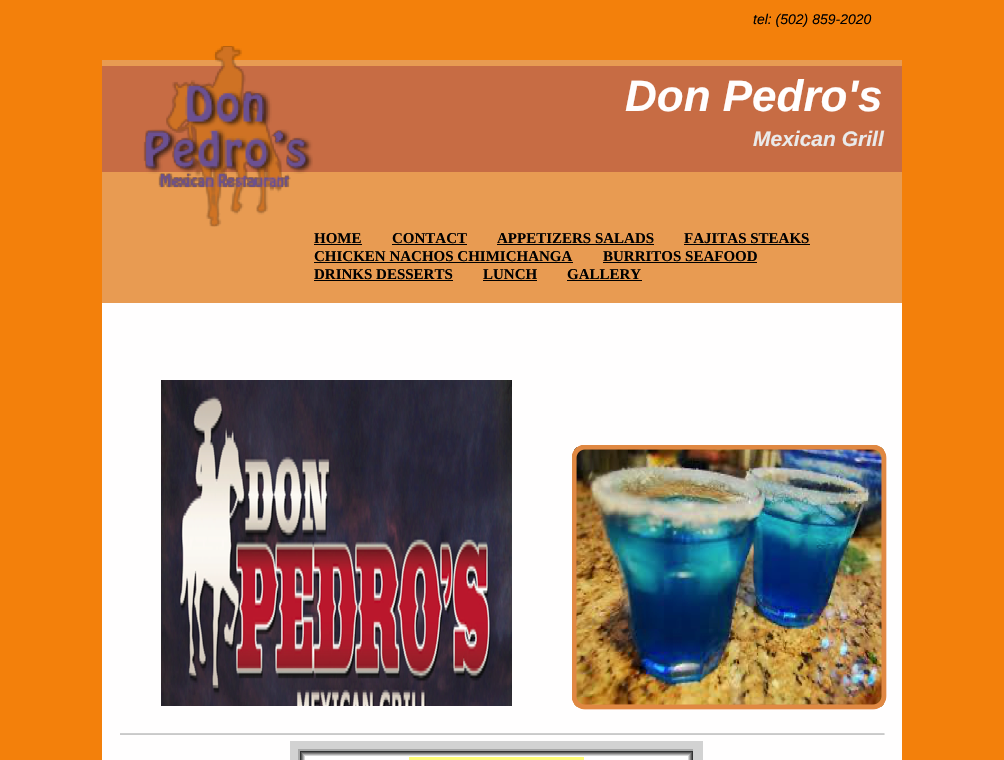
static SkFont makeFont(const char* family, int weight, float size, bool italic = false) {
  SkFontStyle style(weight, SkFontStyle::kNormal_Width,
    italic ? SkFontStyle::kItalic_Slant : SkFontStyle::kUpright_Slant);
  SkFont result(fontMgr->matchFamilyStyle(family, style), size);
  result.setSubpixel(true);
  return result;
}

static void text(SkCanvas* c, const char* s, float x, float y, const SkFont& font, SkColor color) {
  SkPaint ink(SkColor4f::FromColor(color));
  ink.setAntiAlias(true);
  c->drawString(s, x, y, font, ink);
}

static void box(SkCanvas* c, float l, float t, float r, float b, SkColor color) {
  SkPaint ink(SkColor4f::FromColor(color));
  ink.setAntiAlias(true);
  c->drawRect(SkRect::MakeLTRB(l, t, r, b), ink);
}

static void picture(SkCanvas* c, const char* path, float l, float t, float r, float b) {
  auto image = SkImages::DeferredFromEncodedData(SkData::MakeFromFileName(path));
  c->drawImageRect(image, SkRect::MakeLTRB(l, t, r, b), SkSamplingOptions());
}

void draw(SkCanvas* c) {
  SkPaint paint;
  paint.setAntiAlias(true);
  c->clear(0xfff3800b);
  box(c, 102, 303, 902, 760, 0xfffffefe);
  SkFont face1 = makeFont("Liberation Sans", 400, 14, true);
  text(c, "tel: (502) 859-2020", 753, 24, face1, 0xff000000);
  box(c, 102, 60, 902, 66, 0xffe89b52);
  box(c, 102, 66, 902, 172, 0xffc76c44);
  box(c, 102, 172, 902, 303, 0xffe89b52);
  picture(c, "img_01.png", 143, 46, 313, 227);
  SkFont face2 = makeFont("Liberation Sans", 700, 44, true);
  text(c, "Don Pedro's", 625, 111, face2, 0xfffffefe);
  SkFont face3 = makeFont("Liberation Sans", 700, 21, true);
  text(c, "Mexican Grill", 753, 146, face3, 0xffeaeaea);
  SkFont face4 = makeFont("Liberation Serif", 700, 15);
  text(c, "HOME", 314, 243, face4, 0xff000000);
  box(c, 314, 244, 362, 245, 0xff000000);
  text(c, "CONTACT", 392, 243, face4, 0xff000000);
  box(c, 392, 244, 467, 245, 0xff000000);
  text(c, "APPETIZERS SALADS", 497, 243, face4, 0xff000000);
  box(c, 497, 244, 654, 245, 0xff000000);
  text(c, "FAJITAS STEAKS", 684, 243, face4, 0xff000000);
  box(c, 684, 244, 810, 245, 0xff000000);
  text(c, "CHICKEN NACHOS CHIMICHANGA", 314, 261, face4, 0xff000000);
  box(c, 314, 262, 573, 263, 0xff000000);
  text(c, "BURRITOS SEAFOOD", 603, 261, face4, 0xff000000);
  box(c, 603, 262, 757, 263, 0xff000000);
  text(c, "DRINKS DESSERTS", 314, 279, face4, 0xff000000);
  box(c, 314, 280, 453, 281, 0xff000000);
  text(c, "LUNCH", 483, 279, face4, 0xff000000);
  box(c, 483, 280, 537, 281, 0xff000000);
  text(c, "GALLERY", 567, 279, face4, 0xff000000);
  box(c, 567, 280, 642, 281, 0xff000000);
  picture(c, "img_02.png", 161, 380, 512, 706);
  picture(c, "img_03.png", 572, 445, 887, 710);
  picture(c, "img_04.png", 120, 733, 885, 735);
  box(c, 409, 757, 584, 760, 0xfffefc78);
  picture(c, "img_05.png", 290, 741, 703, 760);
}
